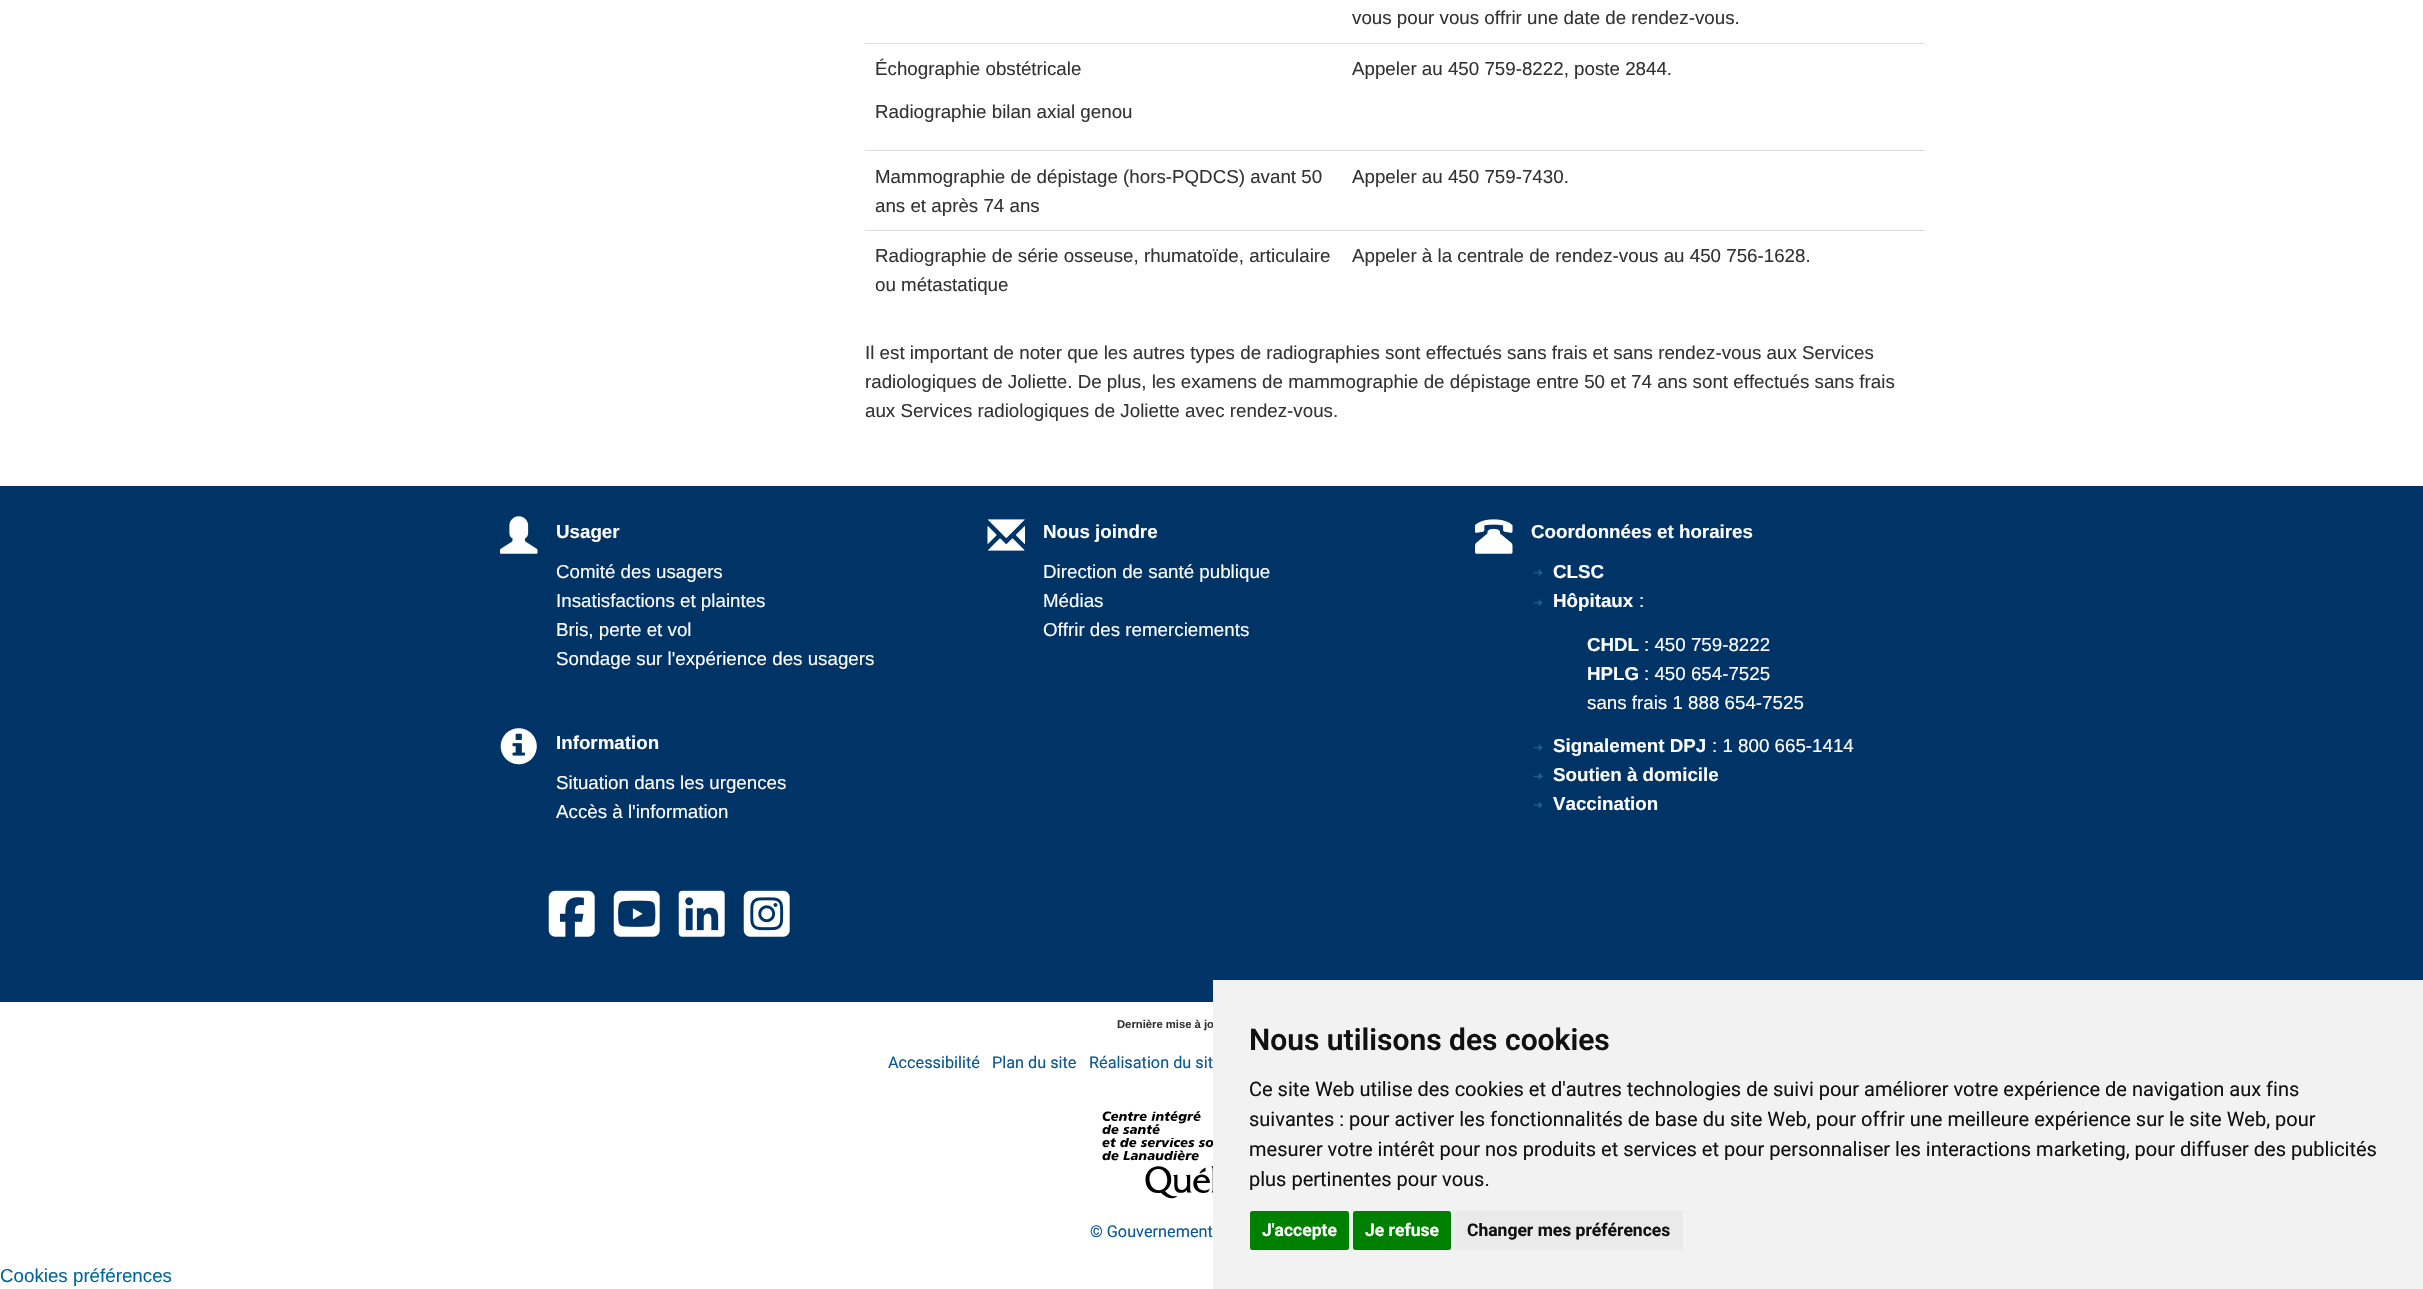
static SkFont makeFont(const char* family, int weight, float size, bool italic = false) {
  SkFontStyle style(weight, SkFontStyle::kNormal_Width,
    italic ? SkFontStyle::kItalic_Slant : SkFontStyle::kUpright_Slant);
  SkFont result(fontMgr->matchFamilyStyle(family, style), size);
  result.setSubpixel(true);
  return result;
}

static void text(SkCanvas* c, const char* s, float x, float y, const SkFont& font, SkColor color) {
  SkPaint ink(SkColor4f::FromColor(color));
  ink.setAntiAlias(true);
  c->drawString(s, x, y, font, ink);
}

static void box(SkCanvas* c, float l, float t, float r, float b, SkColor color) {
  SkPaint ink(SkColor4f::FromColor(color));
  ink.setAntiAlias(true);
  c->drawRect(SkRect::MakeLTRB(l, t, r, b), ink);
}

static void roundBox(SkCanvas* c, float l, float t, float r, float b, float radius, SkColor color) {
  SkPaint ink(SkColor4f::FromColor(color));
  ink.setAntiAlias(true);
  c->drawRoundRect(SkRect::MakeLTRB(l, t, r, b), radius, radius, ink);
}

static void picture(SkCanvas* c, const char* path, float l, float t, float r, float b) {
  auto image = SkImages::DeferredFromEncodedData(SkData::MakeFromFileName(path));
  c->drawImageRect(image, SkRect::MakeLTRB(l, t, r, b), SkSamplingOptions());
}

void draw(SkCanvas* c) {
  SkPaint paint;
  paint.setAntiAlias(true);
  c->clear(0xffffffff);
  SkFont face1 = makeFont("Liberation Sans", 400, 18.75f);
  text(c, "vous pour vous offrir une date de rendez-vous.", 1352, 24, face1, 0xff333333);
  text(c, "Échographie obstétricale", 875, 75, face1, 0xff333333);
  text(c, "Radiographie bilan axial genou", 875, 118, face1, 0xff333333);
  box(c, 865, 43, 1925, 44, 0xffdddddd);
  text(c, "Appeler au 450 759-8222, poste 2844.", 1352, 75, face1, 0xff333333);
  text(c, "Mammographie de dépistage (hors-PQDCS) avant 50", 875, 183, face1, 0xff333333);
  text(c, "ans et après 74 ans", 875, 212, face1, 0xff333333);
  box(c, 865, 150, 1925, 151, 0xffdddddd);
  text(c, "Appeler au 450 759-7430.", 1352, 183, face1, 0xff333333);
  text(c, "Radiographie de série osseuse, rhumatoïde, articulaire", 875, 262, face1, 0xff333333);
  text(c, "ou métastatique", 875, 291, face1, 0xff333333);
  box(c, 865, 230, 1925, 231, 0xffdddddd);
  text(c, "Appeler à la centrale de rendez-vous au 450 756-1628.", 1352, 262, face1, 0xff333333);
  text(c, "Il est important de noter que les autres types de radiographies sont effectués sans frais et sans rendez-vous aux Services", 865, 359, face1, 0xff333333);
  text(c, "radiologiques de Joliette. De plus, les examens de mammographie de dépistage entre 50 et 74 ans sont effectués sans frais", 865, 388, face1, 0xff333333);
  text(c, "aux Services radiologiques de Joliette avec rendez-vous.", 865, 417, face1, 0xff333333);
  box(c, 0, 486, 2423, 1001, 0xff003366);
  picture(c, "img_01.png", 500, 516, 538, 554);
  SkFont face2 = makeFont("Liberation Sans", 700, 18.75f);
  text(c, "Usager", 556, 538, face2, 0xffffffff);
  text(c, "Comité des usagers", 556, 578, face1, 0xffffffff);
  text(c, "Insatisfactions et plaintes", 556, 607, face1, 0xffffffff);
  text(c, "Bris, perte et vol", 556, 636, face1, 0xffffffff);
  text(c, "Sondage sur l'expérience des usagers", 556, 665, face1, 0xffffffff);
  picture(c, "img_02.png", 500, 728, 537, 765);
  text(c, "Information", 556, 749, face2, 0xffffffff);
  text(c, "Situation dans les urgences", 556, 789, face1, 0xffffffff);
  text(c, "Accès à l'information", 556, 818, face1, 0xffffffff);
  picture(c, "img_03.png", 548, 890, 595, 937);
  picture(c, "img_04.png", 613, 890, 660, 937);
  picture(c, "img_05.png", 678, 890, 725, 937);
  picture(c, "img_06.png", 743, 890, 790, 937);
  picture(c, "img_07.png", 987, 519, 1025, 551);
  text(c, "Nous joindre", 1043, 538, face2, 0xffffffff);
  text(c, "Direction de santé publique", 1043, 578, face1, 0xffffffff);
  text(c, "Médias", 1043, 607, face1, 0xffffffff);
  text(c, "Offrir des remerciements", 1043, 636, face1, 0xffffffff);
  picture(c, "img_08.png", 1475, 519, 1513, 554);
  text(c, "Coordonnées et horaires", 1531, 538, face2, 0xffffffff);
  picture(c, "img_09.png", 1533, 569, 1543, 576);
  text(c, "CLSC", 1553, 578, face2, 0xffffffff);
  picture(c, "img_09.png", 1533, 599, 1543, 606);
  text(c, "Hôpitaux", 1553, 607, face2, 0xffffffff);
  text(c, ":", 1639, 607, face1, 0xffffffff);
  text(c, "CHDL", 1587, 651, face2, 0xffffffff);
  text(c, ": 450 759-8222", 1644, 651, face1, 0xffffffff);
  text(c, "HPLG", 1587, 680, face2, 0xffffffff);
  text(c, ": 450 654-7525", 1644, 680, face1, 0xffffffff);
  text(c, "sans frais 1 888 654-7525", 1587, 709, face1, 0xffffffff);
  picture(c, "img_09.png", 1533, 744, 1543, 751);
  text(c, "Signalement DPJ", 1553, 752, face2, 0xffffffff);
  text(c, ": 1 800 665-1414", 1712, 752, face1, 0xffffffff);
  picture(c, "img_10.png", 1533, 773, 1543, 780);
  text(c, "Soutien à domicile", 1553, 781, face2, 0xffffffff);
  picture(c, "img_11.png", 1533, 802, 1543, 809);
  text(c, "Vaccination", 1553, 810, face2, 0xffffffff);
  box(c, 0, 1001, 1213, 1002, 0xff2b2b2b);
  SkFont face3 = makeFont("Liberation Sans", 700, 11.25f);
  text(c, "Dernière mise à jo", 1117, 1028, face3, 0xff333333);
  SkFont face4 = makeFont("Roboto", 400, 16.25f);
  text(c, "Accessibilité", 888, 1068, face4, 0xff095797);
  text(c, "Plan du site", 992, 1068, face4, 0xff095797);
  text(c, "Réalisation du sit", 1089, 1068, face4, 0xff095797);
  picture(c, "img_12.png", 1102, 1111, 1213, 1199);
  text(c, "© Gouvernement", 1090, 1237, face4, 0xff095797);
  box(c, 1213, 980, 2423, 1289, 0xfff2f2f2);
  SkFont face5 = makeFont("Roboto", 600, 30);
  text(c, "Nous utilisons des cookies", 1249, 1050, face5, 0xff111111);
  SkFont face6 = makeFont("Roboto", 400, 20);
  text(c, "Ce site Web utilise des cookies et d'autres technologies de suivi pour améliorer votre expérience de navigation aux fins", 1249, 1096, face6, 0xff111111);
  text(c, "suivantes : pour activer les fonctionnalités de base du site Web, pour offrir une meilleure expérience sur le site Web, pour", 1249, 1126, face6, 0xff111111);
  text(c, "mesurer votre intérêt pour nos produits et services et pour personnaliser les interactions marketing, pour diffuser des publicités", 1249, 1156, face6, 0xff111111);
  text(c, "plus pertinentes pour vous.", 1249, 1186, face6, 0xff111111);
  roundBox(c, 1250, 1211, 1349, 1250, 2.5f, 0xff008000);
  SkFont face7 = makeFont("Roboto", 700, 17.5f);
  text(c, "J'accepte", 1262, 1236, face7, 0xffffffff);
  roundBox(c, 1353, 1211, 1451, 1250, 2.5f, 0xff008000);
  text(c, "Je refuse", 1365, 1236, face7, 0xffffffff);
  roundBox(c, 1455, 1211, 1683, 1250, 2.5f, 0xffeaeaea);
  text(c, "Changer mes préférences", 1467, 1236, face7, 0xff111111);
  text(c, "Cookies préférences", 0, 1282, face1, 0xff006699);
}
